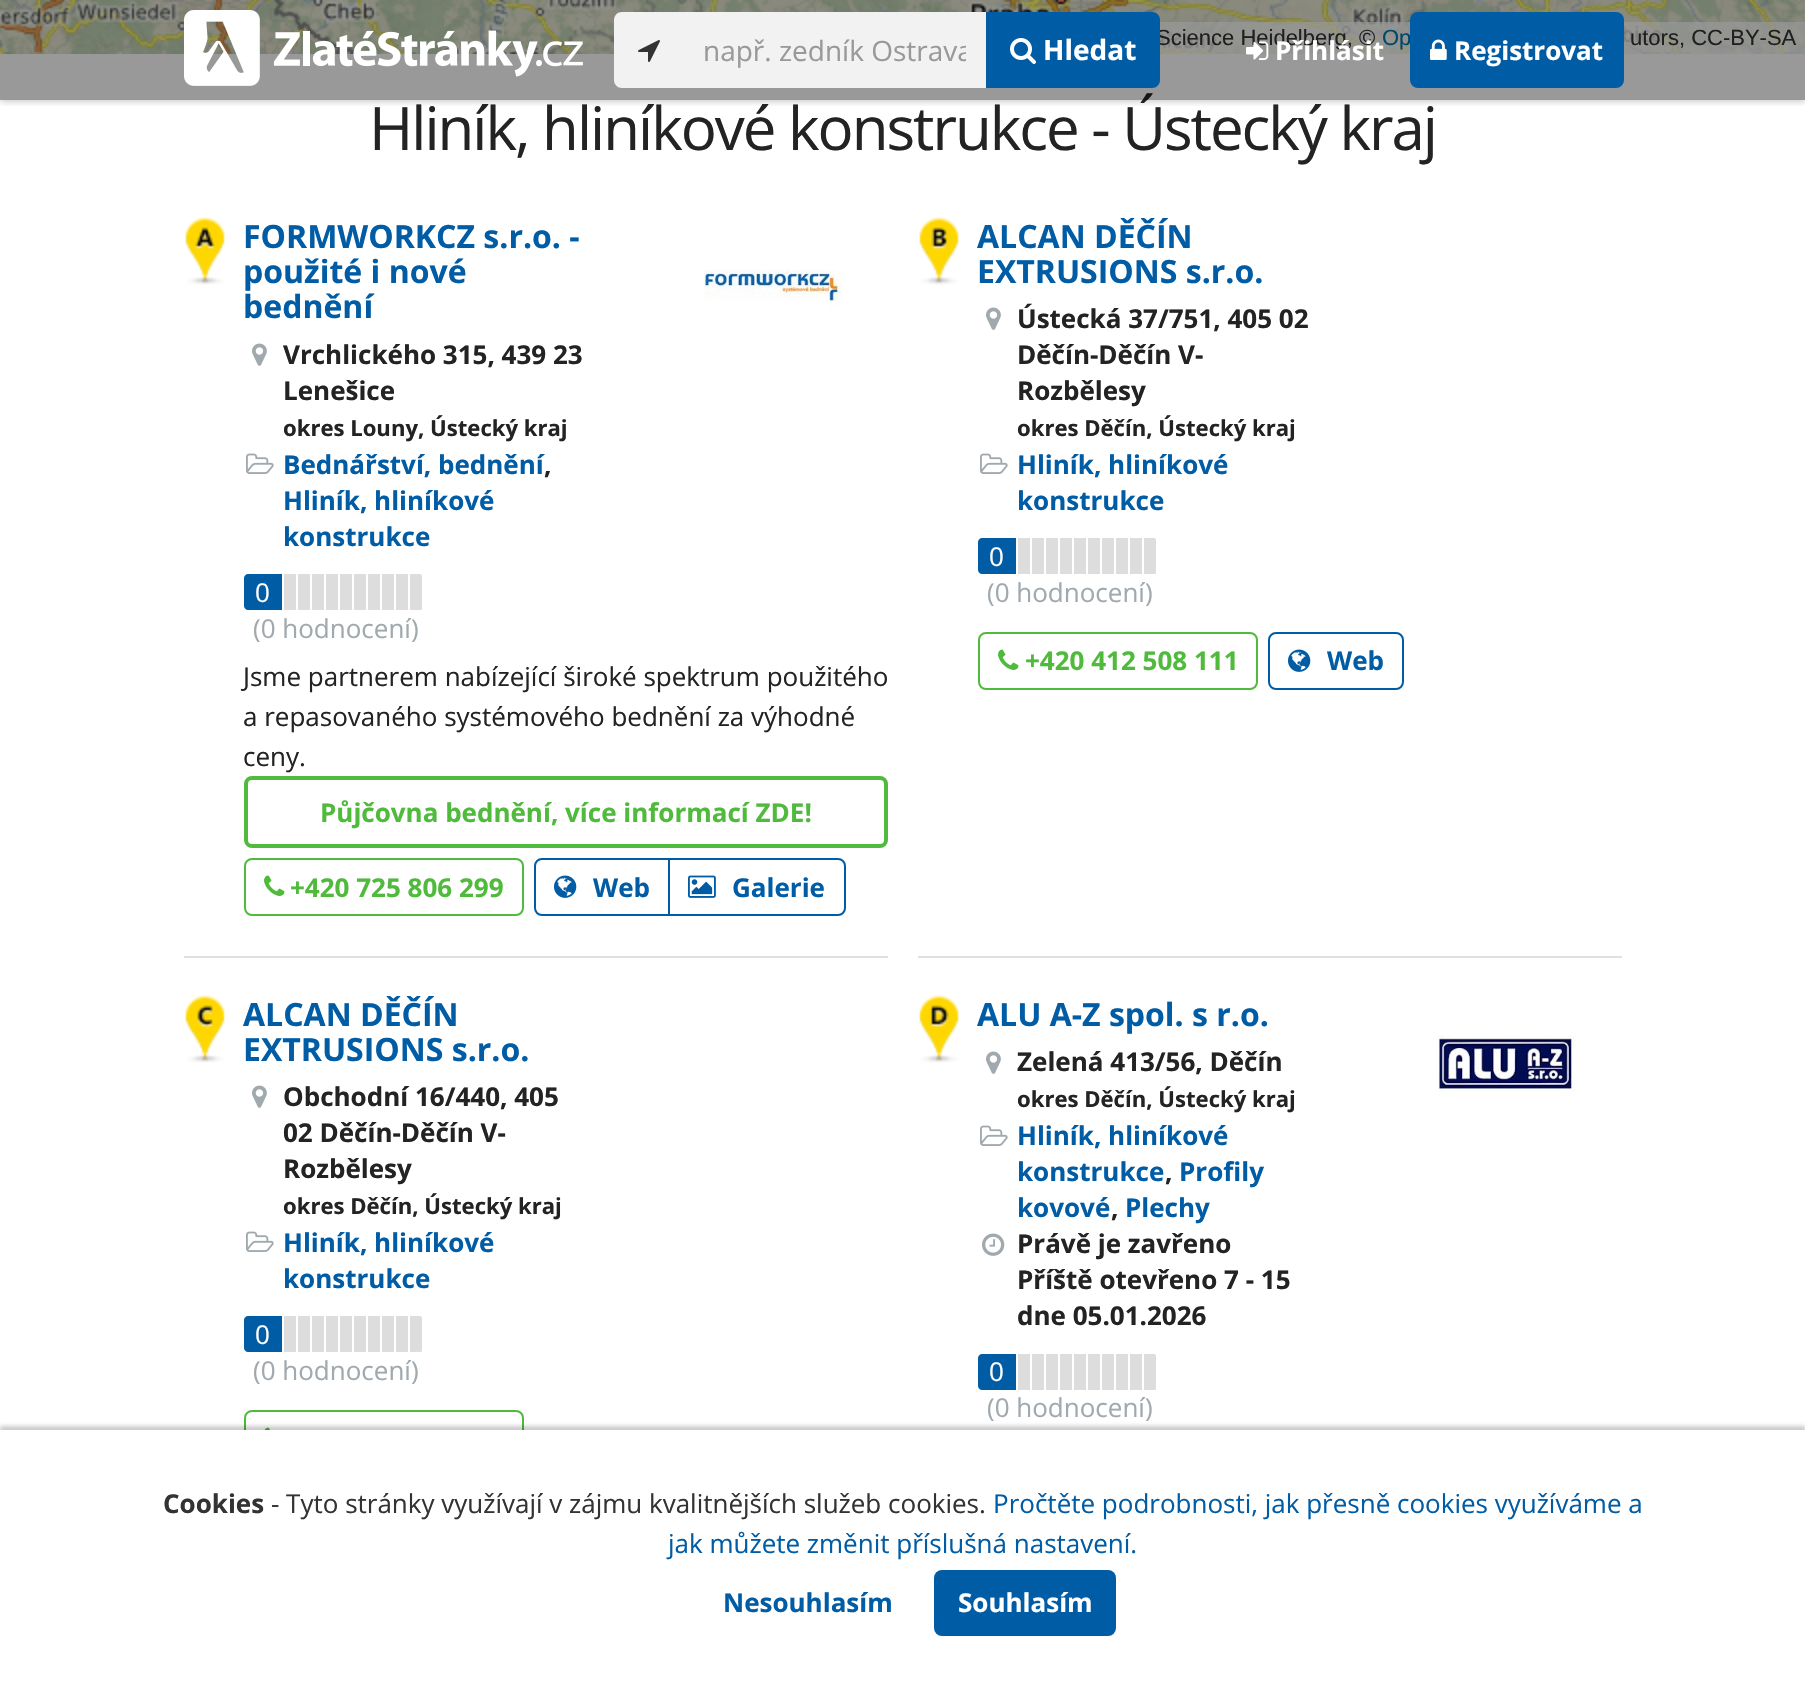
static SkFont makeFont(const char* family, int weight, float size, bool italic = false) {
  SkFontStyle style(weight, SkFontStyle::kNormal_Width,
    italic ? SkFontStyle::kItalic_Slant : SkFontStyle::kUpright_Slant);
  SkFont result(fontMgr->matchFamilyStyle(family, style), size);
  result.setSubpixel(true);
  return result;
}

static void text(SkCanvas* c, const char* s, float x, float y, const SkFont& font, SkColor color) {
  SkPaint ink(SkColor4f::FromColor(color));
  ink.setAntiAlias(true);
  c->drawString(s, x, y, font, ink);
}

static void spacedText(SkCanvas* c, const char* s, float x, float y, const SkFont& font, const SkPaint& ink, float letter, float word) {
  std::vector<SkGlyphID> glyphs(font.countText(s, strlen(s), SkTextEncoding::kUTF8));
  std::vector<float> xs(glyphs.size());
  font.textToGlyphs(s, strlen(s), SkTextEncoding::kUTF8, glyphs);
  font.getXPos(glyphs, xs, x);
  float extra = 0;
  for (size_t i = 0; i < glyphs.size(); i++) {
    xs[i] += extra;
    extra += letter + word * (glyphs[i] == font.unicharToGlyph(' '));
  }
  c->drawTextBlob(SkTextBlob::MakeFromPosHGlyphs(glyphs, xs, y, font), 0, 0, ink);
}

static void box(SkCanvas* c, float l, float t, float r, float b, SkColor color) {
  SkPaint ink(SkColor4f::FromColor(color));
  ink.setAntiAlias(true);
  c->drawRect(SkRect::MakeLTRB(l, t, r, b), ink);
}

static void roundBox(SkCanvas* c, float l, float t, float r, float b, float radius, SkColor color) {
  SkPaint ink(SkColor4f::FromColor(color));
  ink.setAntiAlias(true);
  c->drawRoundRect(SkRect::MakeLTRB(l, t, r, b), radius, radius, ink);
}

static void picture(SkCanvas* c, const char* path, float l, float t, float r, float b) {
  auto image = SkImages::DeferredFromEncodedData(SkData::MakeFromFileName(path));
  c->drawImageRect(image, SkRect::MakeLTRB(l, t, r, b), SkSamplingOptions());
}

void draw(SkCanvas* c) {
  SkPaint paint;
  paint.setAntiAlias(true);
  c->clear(0xffffffff);
  picture(c, "img_01.png", 0, 0, 420, 54);
  picture(c, "img_02.png", 420, 0, 932, 54);
  picture(c, "img_03.png", 932, 0, 1444, 54);
  picture(c, "img_04.png", 1444, 0, 1805, 54);
  box(c, 1160, 22, 1805, 54, 0xb3ffffff);
  SkFont face1 = makeFont("Liberation Sans", 400, 22);
  text(c, "Science Heidelberg, ©", 1156, 45, face1, 0xff333333);
  text(c, "Op", 1382, 45, face1, 0xff0078a8);
  text(c, "utors, CC-BY-SA", 1630, 45, face1, 0xff333333);
  c->save();
  c->clipRect(SkRect::MakeLTRB(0, 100, 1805, 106));
  paint.setColor(0x4d000000);
  paint.setMaskFilter(SkMaskFilter::MakeBlur(kNormal_SkBlurStyle, 4));
  c->drawRect(SkRect::MakeLTRB(0, 0, 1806, 100), paint);
  paint.setMaskFilter(nullptr);
  c->restore();
  SkFont face2 = makeFont("Open Sans", 400, 60);
  paint.setColor(0xff232323);
  spacedText(c, "Hliník, hliníkové konstrukce - Ústecký kraj", 369, 150, face2, paint, -2, 0);
  box(c, 0, 0, 1805, 100, 0x66000000);
  picture(c, "img_05.png", 184, 10, 583, 86);
  paint.setColor(0xfff2f2f2);
  c->drawPath(SkPathBuilder().moveTo(622, 12).lineTo(684, 12).lineTo(684, 88).lineTo(622, 88).cubicTo(617.5f, 88, 614, 84.5f, 614, 80).lineTo(614, 20).cubicTo(614, 15.5f, 617.5f, 12, 622, 12).close().detach(), paint);
  picture(c, "img_06.png", 638, 40, 660, 62);
  box(c, 684, 12, 986, 88, 0xfff2f2f2);
  c->save();
  c->clipRect(SkRect::MakeLTRB(704, 32, 966, 70));
  SkFont face3 = makeFont("Open Sans", 400, 28);
  text(c, "např. zedník Ostrava", 703, 61, face3, 0xff999999);
  c->restore();
  paint.setColor(0xff005ca5);
  c->drawPath(SkPathBuilder().moveTo(986, 12).lineTo(1152, 12).cubicTo(1156.5f, 12, 1160, 15.5f, 1160, 20).lineTo(1160, 80).cubicTo(1160, 84.5f, 1156.5f, 88, 1152, 88).lineTo(986, 88).close().detach(), paint);
  picture(c, "img_07.png", 1010, 38, 1036, 64);
  SkFont face4 = makeFont("Open Sans", 700, 28);
  text(c, "Hledat", 1043, 60, face4, 0xffffffff);
  picture(c, "img_08.png", 1246, 41, 1269, 60);
  SkFont face5 = makeFont("Open Sans", 700, 26);
  text(c, "Přihlásit", 1275, 60, face5, 0xffffffff);
  roundBox(c, 1410, 12, 1624, 88, 8, 0xff005ca5);
  picture(c, "img_09.png", 1430, 39, 1447, 60);
  text(c, "Registrovat", 1454, 60, face5, 0xffffffff);
  box(c, 184, 956, 888, 958, 0xffdee1e3);
  picture(c, "img_10.png", 185, 217, 225, 285);
  SkFont face6 = makeFont("Open Sans", 700, 32);
  text(c, "FORMWORKCZ s.r.o. -", 243, 248, face6, 0xff005ca5);
  text(c, "použité i nové", 243, 283, face6, 0xff005ca5);
  text(c, "bednění", 243, 318, face6, 0xff005ca5);
  picture(c, "img_11.png", 252, 343, 267, 366);
  text(c, "Vrchlického 315, 439 23", 283, 364, face5, 0xff232323);
  text(c, "Lenešice", 283, 400, face5, 0xff232323);
  SkFont face7 = makeFont("Open Sans", 700, 22.1f);
  text(c, "okres Louny, Ústecký kraj", 283, 436, face7, 0xff232323);
  picture(c, "img_12.png", 246, 453, 274, 474);
  text(c, "Bednářství, bednění", 283, 474, face5, 0xff005ca5);
  text(c, ",", 544, 474, face5, 0xff232323);
  text(c, "Hliník, hliníkové", 283, 510, face5, 0xff005ca5);
  text(c, "konstrukce", 283, 546, face5, 0xff005ca5);
  c->drawPath(SkPathBuilder().moveTo(248, 575).lineTo(281, 575).lineTo(281, 609).lineTo(248, 609).cubicTo(246.5f, 609, 245, 607.5f, 245, 606).lineTo(245, 578).cubicTo(245, 576.5f, 246.5f, 575, 248, 575).close().detach(), paint);
  paint.setStyle(SkPaint::kStroke_Style);
  paint.setStrokeWidth(2);
  c->drawPath(SkPathBuilder().moveTo(248, 575).lineTo(281, 575).lineTo(281, 609).lineTo(248, 609).cubicTo(246.5f, 609, 245, 607.5f, 245, 606).lineTo(245, 578).cubicTo(245, 576.5f, 246.5f, 575, 248, 575).close().detach(), paint);
  SkFont face8 = makeFont("Open Sans", 400, 26);
  text(c, "0", 255, 602, face8, 0xffffffff);
  box(c, 284, 574, 296, 610, 0xffdddddd);
  box(c, 298, 574, 310, 610, 0xffdddddd);
  box(c, 312, 574, 324, 610, 0xffdddddd);
  box(c, 326, 574, 338, 610, 0xffdddddd);
  box(c, 340, 574, 352, 610, 0xffdddddd);
  box(c, 354, 574, 366, 610, 0xffdddddd);
  box(c, 368, 574, 380, 610, 0xffdddddd);
  box(c, 382, 574, 394, 610, 0xffdddddd);
  box(c, 396, 574, 408, 610, 0xffdddddd);
  paint.setStyle(SkPaint::kFill_Style);
  paint.setColor(0xffdddddd);
  c->drawPath(SkPathBuilder().moveTo(420, 574).lineTo(410, 574).lineTo(410, 610).lineTo(420.5f, 610).cubicTo(421, 610, 421.5f, 609.5f, 422, 609).lineTo(422, 579).cubicTo(422, 577.5f, 422.5f, 574, 420, 574).close().detach(), paint);
  text(c, "(0 hodnocení)", 253, 638, face8, 0xffa0a9ae);
  picture(c, "img_13.png", 703, 269, 842, 308);
  text(c, "Jsme partnerem nabízející široké spektrum použitého", 243, 686, face8, 0xff232323);
  text(c, "a repasovaného systémového bednění za výhodné", 243, 726, face8, 0xff232323);
  text(c, "ceny.", 243, 766, face8, 0xff232323);
  paint.setStyle(SkPaint::kStroke_Style);
  paint.setStrokeWidth(4);
  paint.setColor(0xff4fba3c);
  c->drawRoundRect(SkRect::MakeLTRB(246, 778, 886, 846), 6, 6, paint);
  text(c, "Půjčovna bednění, více informací ZDE!", 320, 822, face5, 0xff4fba3c);
  paint.setStrokeWidth(2);
  c->drawRoundRect(SkRect::MakeLTRB(245, 859, 523, 915), 7, 7, paint);
  picture(c, "img_14.png", 264, 875, 285, 896);
  text(c, "+420 725 806 299", 290, 897, face5, 0xff4fba3c);
  paint.setColor(0xff005ca5);
  c->drawPath(SkPathBuilder().moveTo(542, 859).lineTo(669, 859).lineTo(669, 915).lineTo(542, 915).cubicTo(538, 915, 535, 912, 535, 908).lineTo(535, 866).cubicTo(535, 862, 538, 859, 542, 859).close().detach(), paint);
  picture(c, "img_15.png", 554, 875, 577, 898);
  text(c, "Web", 593, 897, face5, 0xff005ca5);
  c->drawPath(SkPathBuilder().moveTo(669, 859).lineTo(838, 859).cubicTo(842, 859, 845, 862, 845, 866).lineTo(845, 908).cubicTo(845, 912, 842, 915, 838, 915).lineTo(669, 915).close().detach(), paint);
  picture(c, "img_16.png", 688, 875, 716, 898);
  text(c, "Galerie", 732, 897, face5, 0xff005ca5);
  box(c, 918, 956, 1622, 958, 0xffdee1e3);
  picture(c, "img_17.png", 919, 217, 959, 285);
  text(c, "ALCAN DĚČÍN", 977, 248, face6, 0xff005ca5);
  text(c, "EXTRUSIONS s.r.o.", 977, 283, face6, 0xff005ca5);
  picture(c, "img_11.png", 986, 307, 1001, 330);
  text(c, "Ústecká 37/751, 405 02", 1017, 328, face5, 0xff232323);
  text(c, "Děčín-Děčín V-", 1017, 364, face5, 0xff232323);
  text(c, "Rozbělesy", 1017, 400, face5, 0xff232323);
  text(c, "okres Děčín, Ústecký kraj", 1017, 436, face7, 0xff232323);
  picture(c, "img_12.png", 980, 453, 1008, 474);
  text(c, "Hliník, hliníkové", 1017, 474, face5, 0xff005ca5);
  text(c, "konstrukce", 1017, 510, face5, 0xff005ca5);
  paint.setStyle(SkPaint::kFill_Style);
  c->drawPath(SkPathBuilder().moveTo(982, 539).lineTo(1015, 539).lineTo(1015, 573).lineTo(982, 573).cubicTo(980.5f, 573, 979, 571.5f, 979, 570).lineTo(979, 542).cubicTo(979, 540.5f, 980.5f, 539, 982, 539).close().detach(), paint);
  paint.setStyle(SkPaint::kStroke_Style);
  c->drawPath(SkPathBuilder().moveTo(982, 539).lineTo(1015, 539).lineTo(1015, 573).lineTo(982, 573).cubicTo(980.5f, 573, 979, 571.5f, 979, 570).lineTo(979, 542).cubicTo(979, 540.5f, 980.5f, 539, 982, 539).close().detach(), paint);
  text(c, "0", 989, 566, face8, 0xffffffff);
  box(c, 1018, 538, 1030, 574, 0xffdddddd);
  box(c, 1032, 538, 1044, 574, 0xffdddddd);
  box(c, 1046, 538, 1058, 574, 0xffdddddd);
  box(c, 1060, 538, 1072, 574, 0xffdddddd);
  box(c, 1074, 538, 1086, 574, 0xffdddddd);
  box(c, 1088, 538, 1100, 574, 0xffdddddd);
  box(c, 1102, 538, 1114, 574, 0xffdddddd);
  box(c, 1116, 538, 1128, 574, 0xffdddddd);
  box(c, 1130, 538, 1142, 574, 0xffdddddd);
  paint.setStyle(SkPaint::kFill_Style);
  paint.setColor(0xffdddddd);
  c->drawPath(SkPathBuilder().moveTo(1154, 538).lineTo(1144, 538).lineTo(1144, 574).lineTo(1154.5f, 574).cubicTo(1155, 574, 1155.5f, 573.5f, 1156, 573).lineTo(1156, 543).cubicTo(1156, 541.5f, 1156.5f, 538, 1154, 538).close().detach(), paint);
  text(c, "(0 hodnocení)", 987, 602, face8, 0xffa0a9ae);
  paint.setStyle(SkPaint::kStroke_Style);
  paint.setColor(0xff4fba3c);
  c->drawRoundRect(SkRect::MakeLTRB(979, 633, 1257, 689), 7, 7, paint);
  picture(c, "img_14.png", 998, 649, 1019, 670);
  text(c, "+420 412 508 111", 1025, 670, face5, 0xff4fba3c);
  paint.setColor(0xff005ca5);
  c->drawRoundRect(SkRect::MakeLTRB(1269, 633, 1403, 689), 7, 7, paint);
  picture(c, "img_15.png", 1288, 649, 1311, 672);
  text(c, "Web", 1327, 670, face5, 0xff005ca5);
  picture(c, "img_18.png", 185, 995, 225, 1063);
  text(c, "ALCAN DĚČÍN", 243, 1026, face6, 0xff005ca5);
  text(c, "EXTRUSIONS s.r.o.", 243, 1061, face6, 0xff005ca5);
  picture(c, "img_11.png", 252, 1085, 267, 1108);
  text(c, "Obchodní 16/440, 405", 283, 1106, face5, 0xff232323);
  text(c, "02 Děčín-Děčín V-", 283, 1142, face5, 0xff232323);
  text(c, "Rozbělesy", 283, 1178, face5, 0xff232323);
  text(c, "okres Děčín, Ústecký kraj", 283, 1214, face7, 0xff232323);
  picture(c, "img_12.png", 246, 1231, 274, 1252);
  text(c, "Hliník, hliníkové", 283, 1252, face5, 0xff005ca5);
  text(c, "konstrukce", 283, 1288, face5, 0xff005ca5);
  paint.setStyle(SkPaint::kFill_Style);
  c->drawPath(SkPathBuilder().moveTo(248, 1317).lineTo(281, 1317).lineTo(281, 1351).lineTo(248, 1351).cubicTo(246.5f, 1351, 245, 1349.5f, 245, 1348).lineTo(245, 1320).cubicTo(245, 1318.5f, 246.5f, 1317, 248, 1317).close().detach(), paint);
  paint.setStyle(SkPaint::kStroke_Style);
  c->drawPath(SkPathBuilder().moveTo(248, 1317).lineTo(281, 1317).lineTo(281, 1351).lineTo(248, 1351).cubicTo(246.5f, 1351, 245, 1349.5f, 245, 1348).lineTo(245, 1320).cubicTo(245, 1318.5f, 246.5f, 1317, 248, 1317).close().detach(), paint);
  text(c, "0", 255, 1344, face8, 0xffffffff);
  box(c, 284, 1316, 296, 1352, 0xffdddddd);
  box(c, 298, 1316, 310, 1352, 0xffdddddd);
  box(c, 312, 1316, 324, 1352, 0xffdddddd);
  box(c, 326, 1316, 338, 1352, 0xffdddddd);
  box(c, 340, 1316, 352, 1352, 0xffdddddd);
  box(c, 354, 1316, 366, 1352, 0xffdddddd);
  box(c, 368, 1316, 380, 1352, 0xffdddddd);
  box(c, 382, 1316, 394, 1352, 0xffdddddd);
  box(c, 396, 1316, 408, 1352, 0xffdddddd);
  paint.setStyle(SkPaint::kFill_Style);
  paint.setColor(0xffdddddd);
  c->drawPath(SkPathBuilder().moveTo(420, 1316).lineTo(410, 1316).lineTo(410, 1352).lineTo(420.5f, 1352).cubicTo(421, 1352, 421.5f, 1351.5f, 422, 1351).lineTo(422, 1321).cubicTo(422, 1319.5f, 422.5f, 1316, 420, 1316).close().detach(), paint);
  text(c, "(0 hodnocení)", 253, 1380, face8, 0xffa0a9ae);
  paint.setStyle(SkPaint::kStroke_Style);
  paint.setColor(0xff4fba3c);
  c->drawRoundRect(SkRect::MakeLTRB(245, 1411, 523, 1467), 7, 7, paint);
  picture(c, "img_19.png", 264, 1427, 270, 1430);
  picture(c, "img_20.png", 919, 995, 959, 1063);
  text(c, "ALU A-Z spol. s r.o.", 977, 1026, face6, 0xff005ca5);
  picture(c, "img_11.png", 986, 1051, 1001, 1074);
  text(c, "Zelená 413/56, Děčín", 1017, 1071, face5, 0xff232323);
  text(c, "okres Děčín, Ústecký kraj", 1017, 1107, face7, 0xff232323);
  picture(c, "img_12.png", 980, 1125, 1008, 1146);
  text(c, "Hliník, hliníkové", 1017, 1145, face5, 0xff005ca5);
  text(c, "konstrukce", 1017, 1181, face5, 0xff005ca5);
  text(c, ",", 1165, 1181, face5, 0xff232323);
  text(c, "Profily", 1179, 1181, face5, 0xff005ca5);
  text(c, "kovové", 1017, 1217, face5, 0xff005ca5);
  text(c, ",", 1111, 1217, face5, 0xff232323);
  text(c, "Plechy", 1125, 1217, face5, 0xff005ca5);
  picture(c, "img_21.png", 982, 1233, 1005, 1256);
  text(c, "Právě je zavřeno", 1017, 1253, face5, 0xff232323);
  text(c, "Příště otevřeno 7 - 15", 1017, 1289, face5, 0xff232323);
  text(c, "dne 05.01.2026", 1017, 1325, face5, 0xff232323);
  paint.setStyle(SkPaint::kFill_Style);
  paint.setColor(0xff005ca5);
  c->drawPath(SkPathBuilder().moveTo(982, 1355).lineTo(1015, 1355).lineTo(1015, 1389).lineTo(982, 1389).cubicTo(980.5f, 1389, 979, 1387.5f, 979, 1386).lineTo(979, 1358).cubicTo(979, 1356.5f, 980.5f, 1355, 982, 1355).close().detach(), paint);
  paint.setStyle(SkPaint::kStroke_Style);
  c->drawPath(SkPathBuilder().moveTo(982, 1355).lineTo(1015, 1355).lineTo(1015, 1389).lineTo(982, 1389).cubicTo(980.5f, 1389, 979, 1387.5f, 979, 1386).lineTo(979, 1358).cubicTo(979, 1356.5f, 980.5f, 1355, 982, 1355).close().detach(), paint);
  text(c, "0", 989, 1381, face8, 0xffffffff);
  box(c, 1018, 1354, 1030, 1390, 0xffdddddd);
  box(c, 1032, 1354, 1044, 1390, 0xffdddddd);
  box(c, 1046, 1354, 1058, 1390, 0xffdddddd);
  box(c, 1060, 1354, 1072, 1390, 0xffdddddd);
  box(c, 1074, 1354, 1086, 1390, 0xffdddddd);
  box(c, 1088, 1354, 1100, 1390, 0xffdddddd);
  box(c, 1102, 1354, 1114, 1390, 0xffdddddd);
  box(c, 1116, 1354, 1128, 1390, 0xffdddddd);
  box(c, 1130, 1354, 1142, 1390, 0xffdddddd);
  paint.setStyle(SkPaint::kFill_Style);
  paint.setColor(0xffdddddd);
  c->drawPath(SkPathBuilder().moveTo(1154, 1354).lineTo(1144, 1354).lineTo(1144, 1390).lineTo(1154.5f, 1390).cubicTo(1155, 1390, 1155.5f, 1389.5f, 1156, 1389).lineTo(1156, 1359).cubicTo(1156, 1357.5f, 1156.5f, 1354, 1154, 1354).close().detach(), paint);
  text(c, "(0 hodnocení)", 987, 1417, face8, 0xffa0a9ae);
  picture(c, "img_22.png", 1437, 1035, 1576, 1098);
  paint.setColor(0x33000000);
  paint.setMaskFilter(SkMaskFilter::MakeBlur(kNormal_SkBlurStyle, 2));
  c->drawRect(SkRect::MakeLTRB(0, 1426, 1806, 1684), paint);
  paint.setMaskFilter(nullptr);
  box(c, 0, 1430, 1805, 1687, 0xffffffff);
  text(c, "Cookies", 163, 1513, face5, 0xff333333);
  text(c, "- Tyto stránky využívají v zájmu kvalitnějších služeb cookies.", 271, 1513, face8, 0xff333333);
  text(c, "Pročtěte podrobnosti, jak přesně cookies využíváme a", 993, 1513, face8, 0xff005ca5);
  text(c, "jak můžete změnit příslušná nastavení.", 668, 1553, face8, 0xff005ca5);
  text(c, "Nesouhlasím", 723, 1612, face5, 0xff005ca5);
  roundBox(c, 934, 1570, 1116, 1636, 8, 0xff005ca5);
  text(c, "Souhlasím", 958, 1612, face5, 0xffffffff);
}
